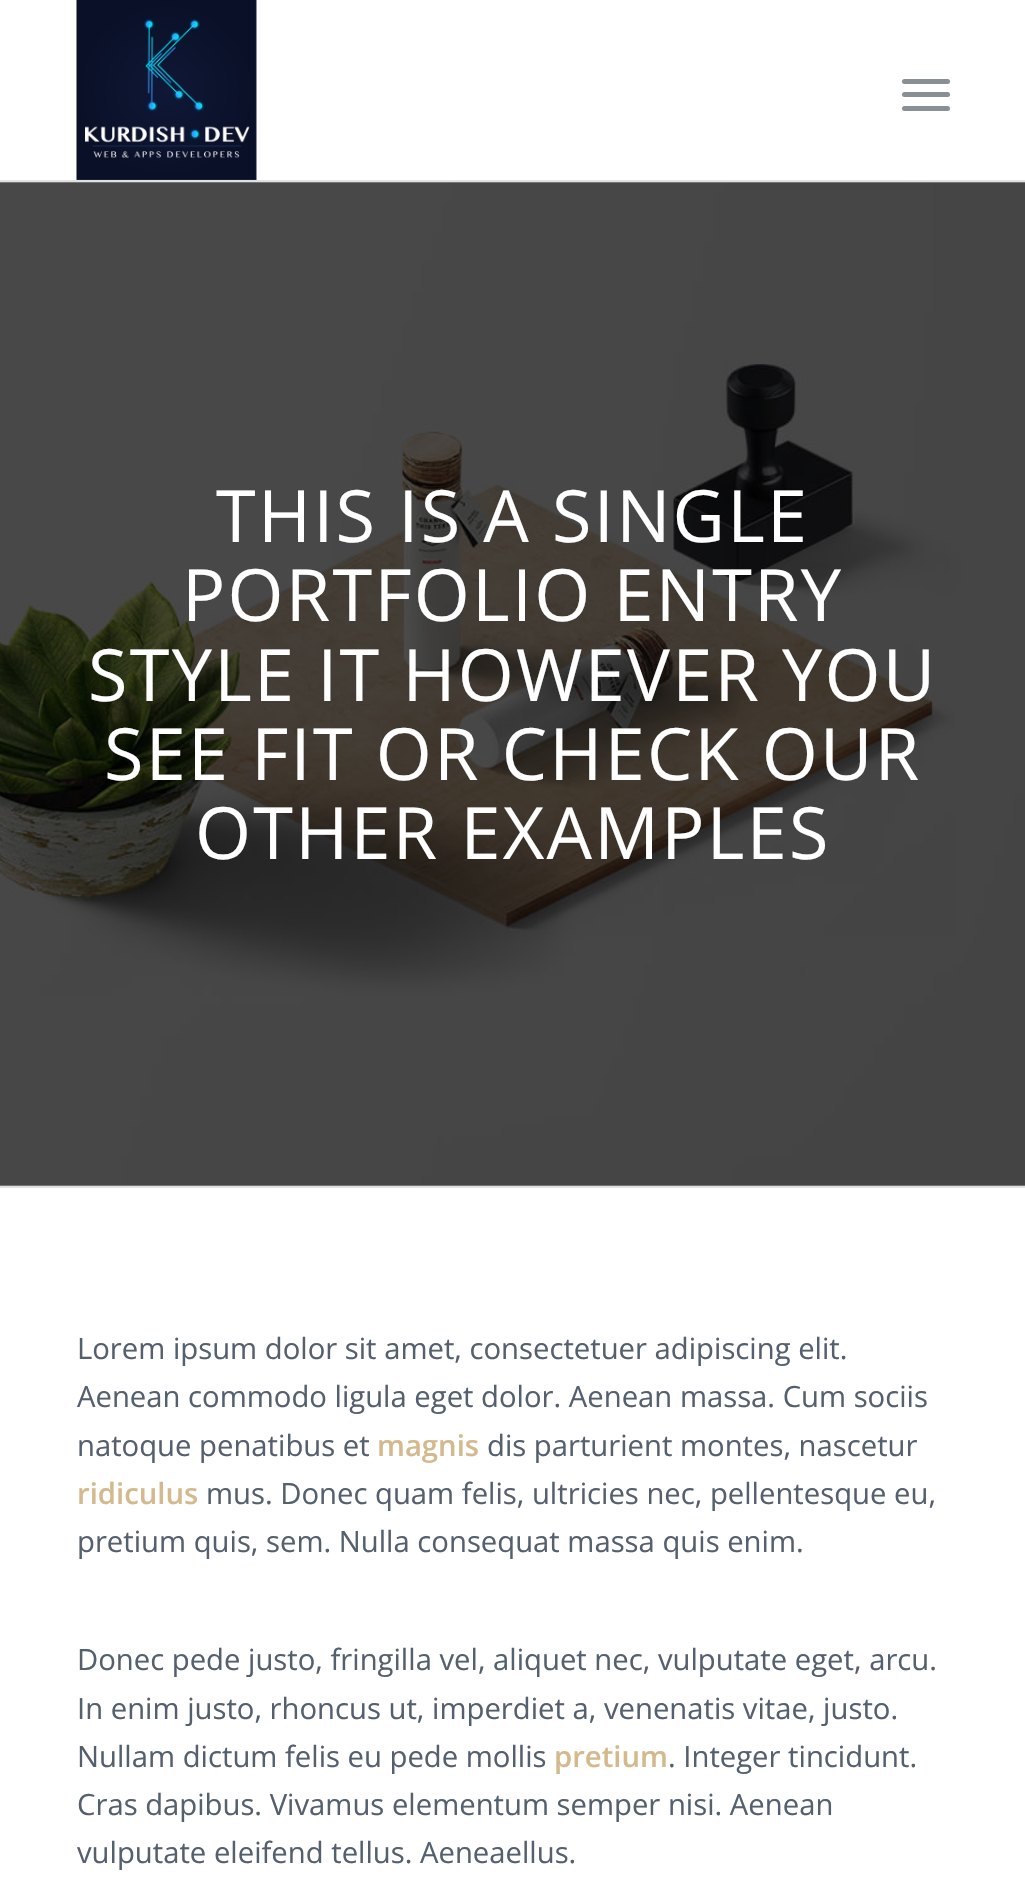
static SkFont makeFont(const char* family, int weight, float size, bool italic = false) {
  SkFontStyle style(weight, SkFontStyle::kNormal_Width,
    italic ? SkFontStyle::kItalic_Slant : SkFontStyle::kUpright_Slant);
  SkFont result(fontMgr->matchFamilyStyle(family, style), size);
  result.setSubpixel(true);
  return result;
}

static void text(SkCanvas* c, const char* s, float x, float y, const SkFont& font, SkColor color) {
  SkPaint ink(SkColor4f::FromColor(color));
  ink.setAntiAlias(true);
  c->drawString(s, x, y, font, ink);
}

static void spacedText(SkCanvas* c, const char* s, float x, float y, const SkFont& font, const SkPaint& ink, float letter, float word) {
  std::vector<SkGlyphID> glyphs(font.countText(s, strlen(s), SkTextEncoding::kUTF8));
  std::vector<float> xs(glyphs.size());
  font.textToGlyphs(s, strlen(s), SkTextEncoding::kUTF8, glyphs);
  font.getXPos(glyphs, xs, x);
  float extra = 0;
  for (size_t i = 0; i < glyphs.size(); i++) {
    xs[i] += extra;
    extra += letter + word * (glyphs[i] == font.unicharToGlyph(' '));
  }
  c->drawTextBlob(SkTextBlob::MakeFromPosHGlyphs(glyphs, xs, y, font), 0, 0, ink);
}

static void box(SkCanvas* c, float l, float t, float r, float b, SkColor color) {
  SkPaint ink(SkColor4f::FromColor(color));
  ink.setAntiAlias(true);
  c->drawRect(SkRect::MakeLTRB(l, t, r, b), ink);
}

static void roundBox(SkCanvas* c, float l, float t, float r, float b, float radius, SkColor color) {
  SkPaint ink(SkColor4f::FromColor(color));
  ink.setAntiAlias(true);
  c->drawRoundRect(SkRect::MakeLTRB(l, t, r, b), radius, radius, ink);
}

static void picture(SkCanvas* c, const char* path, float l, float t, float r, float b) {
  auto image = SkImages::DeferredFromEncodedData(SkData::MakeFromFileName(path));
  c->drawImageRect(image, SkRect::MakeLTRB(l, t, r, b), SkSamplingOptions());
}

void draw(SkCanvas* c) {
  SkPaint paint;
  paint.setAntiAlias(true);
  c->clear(0xffffffff);
  box(c, 0, 180, 1025, 182, 0xffe1e1e1);
  picture(c, "img_01.png", 76, 0, 257, 180);
  roundBox(c, 902, 92, 950, 97, 2.5f, 0xff889095);
  roundBox(c, 902, 79, 950, 84, 2.5f, 0xff889095);
  roundBox(c, 902, 106, 950, 111, 2.5f, 0xff889095);
  picture(c, "img_02.png", 0, 182, 1025, 1186);
  SkFont face1 = makeFont("Open Sans", 400, 72);
  paint.setColor(0xffffffff);
  spacedText(c, "THIS IS A SINGLE", 216, 542, face1, paint, 2.25f, 0);
  spacedText(c, "PORTFOLIO ENTRY", 182, 621, face1, paint, 2.25f, 0);
  spacedText(c, "STYLE IT HOWEVER YOU", 88, 701, face1, paint, 2.25f, 0);
  spacedText(c, "SEE FIT OR CHECK OUR", 104, 780, face1, paint, 2.25f, 0);
  spacedText(c, "OTHER EXAMPLES", 195, 859, face1, paint, 2.25f, 0);
  box(c, 0, 1186, 1025, 1188, 0xffe1e1e1);
  SkFont face2 = makeFont("Open Sans", 400, 29.25f);
  text(c, "Lorem ipsum dolor sit amet, consectetuer adipiscing elit.", 77, 1359, face2, 0xff55606e);
  text(c, "Aenean commodo ligula eget dolor. Aenean massa. Cum sociis", 77, 1407, face2, 0xff55606e);
  text(c, "natoque penatibus et", 77, 1456, face2, 0xff55606e);
  SkFont face3 = makeFont("Open Sans", 600, 29.25f);
  text(c, "magnis", 377, 1456, face3, 0xffd4b98c);
  text(c, "dis parturient montes, nascetur", 487, 1456, face2, 0xff55606e);
  text(c, "ridiculus", 77, 1504, face3, 0xffd4b98c);
  text(c, "mus. Donec quam felis, ultricies nec, pellentesque eu,", 206, 1504, face2, 0xff55606e);
  text(c, "pretium quis, sem. Nulla consequat massa quis enim.", 77, 1552, face2, 0xff55606e);
  text(c, "Donec pede justo, fringilla vel, aliquet nec, vulputate eget, arcu.", 77, 1670, face2, 0xff55606e);
  text(c, "In enim justo, rhoncus ut, imperdiet a, venenatis vitae, justo.", 77, 1719, face2, 0xff55606e);
  text(c, "Nullam dictum felis eu pede mollis", 77, 1767, face2, 0xff55606e);
  text(c, "pretium", 554, 1767, face3, 0xffd4b98c);
  text(c, ". Integer tincidunt.", 668, 1767, face2, 0xff55606e);
  text(c, "Cras dapibus. Vivamus elementum semper nisi. Aenean", 77, 1815, face2, 0xff55606e);
  text(c, "vulputate eleifend tellus. Aeneaellus.", 77, 1863, face2, 0xff55606e);
}
